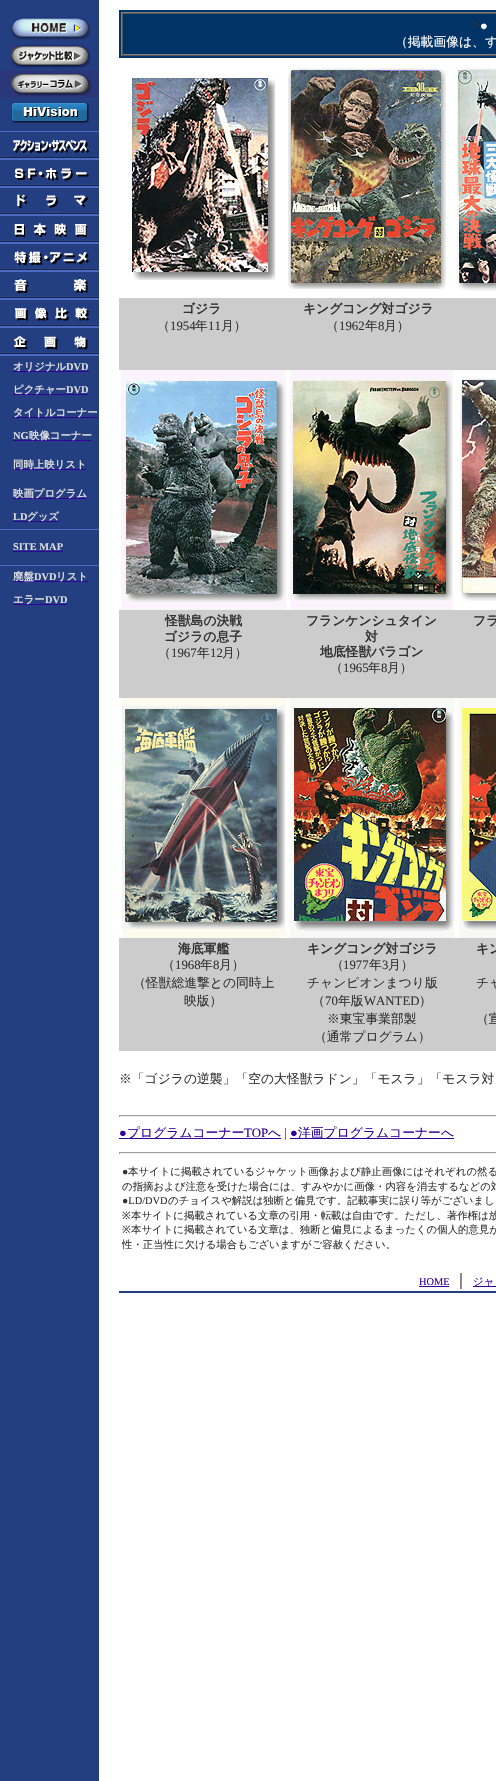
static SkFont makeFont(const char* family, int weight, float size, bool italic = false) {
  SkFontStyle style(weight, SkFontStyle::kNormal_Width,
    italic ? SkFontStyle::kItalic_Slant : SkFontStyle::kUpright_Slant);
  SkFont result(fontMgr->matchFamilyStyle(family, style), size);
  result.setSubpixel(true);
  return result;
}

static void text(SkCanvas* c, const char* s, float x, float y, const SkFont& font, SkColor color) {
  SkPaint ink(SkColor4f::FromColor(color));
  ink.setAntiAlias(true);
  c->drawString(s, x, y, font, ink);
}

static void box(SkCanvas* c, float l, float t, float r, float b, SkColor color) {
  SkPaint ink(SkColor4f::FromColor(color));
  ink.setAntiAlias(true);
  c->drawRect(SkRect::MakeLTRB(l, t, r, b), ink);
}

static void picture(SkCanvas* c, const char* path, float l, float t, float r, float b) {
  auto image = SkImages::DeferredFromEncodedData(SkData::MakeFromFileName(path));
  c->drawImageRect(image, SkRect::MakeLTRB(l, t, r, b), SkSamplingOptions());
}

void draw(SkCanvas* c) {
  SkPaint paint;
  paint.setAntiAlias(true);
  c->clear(0xffffffff);
  box(c, 0, 0, 99, 1781, 0xff243e82);
  picture(c, "img_01.png", 11, 17, 91, 40);
  picture(c, "img_02.png", 10, 45, 91, 68);
  picture(c, "img_03.png", 0, 70, 99, 98);
  picture(c, "img_04.png", 11, 102, 90, 124);
  picture(c, "img_05.png", 0, 131, 99, 159);
  picture(c, "img_06.png", 0, 159, 99, 187);
  picture(c, "img_07.png", 0, 187, 99, 215);
  picture(c, "img_08.png", 0, 215, 99, 243);
  picture(c, "img_09.png", 0, 243, 99, 271);
  picture(c, "img_10.png", 0, 271, 99, 299);
  picture(c, "img_11.png", 0, 299, 99, 327);
  picture(c, "img_12.png", 0, 327, 99, 355);
  box(c, 0, 355, 99, 356, 0xff496bc5);
  box(c, 13, 371, 89, 372, 0xff330099);
  SkFont face1 = makeFont("WenQuanYi Zen Hei", 700, 10.4f);
  text(c, "オリジナル", 13, 370, face1, 0xffdcdcdc);
  SkFont face2 = makeFont("Liberation Serif", 700, 10.4f);
  text(c, "DVD", 66, 370, face2, 0xffdcdcdc);
  box(c, 13, 394, 88, 395, 0xff330099);
  text(c, "ピクチャー", 13, 393, face1, 0xffdcdcdc);
  text(c, "DVD", 66, 393, face2, 0xffdcdcdc);
  box(c, 13, 417, 98, 418, 0xff330099);
  text(c, "タイトルコーナー", 13, 416, face1, 0xffdcdcdc);
  text(c, "NG", 13, 439, face2, 0xffdcdcdc);
  box(c, 13, 440, 91, 441, 0xff330099);
  text(c, "映像コーナー", 29, 439, face1, 0xffdcdcdc);
  box(c, 13, 469, 86, 470, 0xff330099);
  text(c, "同時上映リスト", 13, 468, face1, 0xffdcdcdc);
  box(c, 13, 498, 87, 499, 0xff330099);
  text(c, "映画プログラム", 13, 497, face1, 0xffdcdcdc);
  text(c, "LD", 13, 520, face2, 0xffdcdcdc);
  box(c, 13, 521, 59, 522, 0xff330099);
  text(c, "グッズ", 27, 520, face1, 0xffdcdcdc);
  box(c, 0, 529, 99, 530, 0xff496bc5);
  text(c, "SITE MAP", 13, 550, face2, 0xffdcdcdc);
  box(c, 13, 551, 63, 552, 0xff330099);
  box(c, 0, 565, 99, 566, 0xff496bc5);
  box(c, 13, 581, 88, 582, 0xff330099);
  text(c, "廃盤", 13, 580, face1, 0xffdcdcdc);
  text(c, "DVD", 34, 580, face2, 0xffdcdcdc);
  text(c, "リスト", 56, 580, face1, 0xffdcdcdc);
  box(c, 13, 604, 67, 605, 0xff330099);
  text(c, "エラー", 13, 603, face1, 0xffdcdcdc);
  text(c, "DVD", 45, 603, face2, 0xffdcdcdc);
  box(c, 119, 10, 496, 58, 0xff003366);
  box(c, 121, 12, 496, 13, 0xff808080);
  box(c, 121, 55, 496, 56, 0xff555555);
  box(c, 121, 12, 122, 56, 0xff808080);
  box(c, 122, 13, 496, 14, 0xff555555);
  box(c, 122, 54, 496, 55, 0xff808080);
  box(c, 122, 13, 123, 55, 0xff555555);
  SkFont face3 = makeFont("Liberation Serif", 400, 16);
  text(c, ">", 471, 30, face3, 0xff333333);
  SkFont face4 = makeFont("Liberation Serif", 700, 12.8f);
  text(c, "●", 480, 30, face4, 0xffffffff);
  SkFont face5 = makeFont("WenQuanYi Zen Hei", 500, 12.8f);
  text(c, "（掲載画像は、す", 395, 46, face5, 0xffffffff);
  picture(c, "img_13.png", 132, 78, 275, 280);
  picture(c, "img_14.png", 288, 68, 446, 289);
  picture(c, "img_15.png", 457, 68, 496, 291);
  box(c, 119, 298, 496, 370, 0xffcccccc);
  SkFont face6 = makeFont("WenQuanYi Zen Hei", 700, 12.8f);
  text(c, "ゴジラ", 182, 313, face6, 0xff333333);
  text(c, "（", 157, 330, face5, 0xff333333);
  SkFont face7 = makeFont("Liberation Serif", 400, 12.8f);
  text(c, "1954", 170, 330, face7, 0xff333333);
  text(c, "年", 195, 330, face5, 0xff333333);
  text(c, "11", 208, 330, face7, 0xff333333);
  text(c, "月）", 221, 330, face5, 0xff333333);
  text(c, "キングコング対ゴジラ", 303, 313, face6, 0xff333333);
  text(c, "（", 326, 330, face5, 0xff333333);
  text(c, "1962", 339, 330, face7, 0xff333333);
  text(c, "年", 365, 330, face5, 0xff333333);
  text(c, "8", 378, 330, face7, 0xff333333);
  text(c, "月）", 384, 330, face5, 0xff333333);
  picture(c, "img_16.png", 121, 370, 286, 610);
  picture(c, "img_17.png", 290, 370, 453, 610);
  picture(c, "img_18.png", 460, 378, 496, 601);
  box(c, 119, 610, 496, 698, 0xffcccccc);
  text(c, "怪獣島の決戦", 165, 625, face6, 0xff333333);
  text(c, "ゴジラの息子", 164, 641, face6, 0xff333333);
  text(c, "（", 158, 657, face5, 0xff333333);
  text(c, "1967", 171, 657, face7, 0xff333333);
  text(c, "年", 197, 657, face5, 0xff333333);
  text(c, "12", 210, 657, face7, 0xff333333);
  text(c, "月）", 222, 657, face5, 0xff333333);
  text(c, "フランケンシュタイン", 306, 625, face6, 0xff333333);
  text(c, "対", 365, 641, face6, 0xff333333);
  text(c, "地底怪獣バラゴン", 320, 656, face6, 0xff333333);
  text(c, "（", 330, 672, face5, 0xff333333);
  text(c, "1965", 343, 672, face7, 0xff333333);
  text(c, "年", 368, 672, face5, 0xff333333);
  text(c, "8", 381, 672, face7, 0xff333333);
  text(c, "月）", 387, 672, face5, 0xff333333);
  text(c, "フラ", 473, 625, face6, 0xff333333);
  picture(c, "img_19.png", 122, 698, 285, 938);
  picture(c, "img_20.png", 290, 698, 454, 938);
  picture(c, "img_21.png", 459, 698, 496, 938);
  box(c, 119, 938, 496, 1051, 0xffcccccc);
  text(c, "海底軍艦", 178, 953, face6, 0xff333333);
  text(c, "（", 162, 969, face5, 0xff333333);
  text(c, "1968", 175, 969, face7, 0xff333333);
  text(c, "年", 200, 969, face5, 0xff333333);
  text(c, "8", 213, 969, face7, 0xff333333);
  text(c, "月）", 219, 969, face5, 0xff333333);
  text(c, "（怪獣総進撃との同時上", 133, 987, face5, 0xff333333);
  text(c, "映版）", 184, 1005, face5, 0xff333333);
  text(c, "キングコング対ゴジラ", 307, 953, face6, 0xff333333);
  text(c, "（", 331, 969, face5, 0xff333333);
  text(c, "1977", 343, 969, face7, 0xff333333);
  text(c, "年", 369, 969, face5, 0xff333333);
  text(c, "3", 382, 969, face7, 0xff333333);
  text(c, "月）", 388, 969, face5, 0xff333333);
  text(c, "チャンピオンまつり版", 307, 987, face5, 0xff333333);
  text(c, "（", 312, 1005, face5, 0xff333333);
  text(c, "70", 325, 1005, face7, 0xff333333);
  text(c, "年版", 338, 1005, face5, 0xff333333);
  text(c, "WANTED", 364, 1005, face7, 0xff333333);
  text(c, "）", 419, 1005, face5, 0xff333333);
  text(c, "※東宝事業部製", 327, 1023, face5, 0xff333333);
  text(c, "（通常プログラム）", 314, 1041, face5, 0xff333333);
  text(c, "キン", 476, 953, face6, 0xff333333);
  text(c, "チャ", 476, 987, face5, 0xff333333);
  text(c, "（宣", 476, 1023, face5, 0xff333333);
  text(c, "※「ゴジラの逆襲」「空の大怪獣ラドン」「モスラ」「モスラ対", 119, 1083, face5, 0xff333333);
  box(c, 119, 1115, 496, 1116, 0xff9f9f9f);
  box(c, 119, 1116, 496, 1117, 0xffeeeeee);
  box(c, 119, 1115, 120, 1117, 0xff9f9f9f);
  text(c, "●", 119, 1137, face7, 0xff330099);
  box(c, 119, 1138, 281, 1139, 0xff330099);
  text(c, "プログラムコーナー", 127, 1137, face5, 0xff330099);
  text(c, "TOP", 244, 1137, face7, 0xff330099);
  text(c, "へ", 268, 1137, face5, 0xff330099);
  text(c, "|", 284, 1137, face7, 0xff333333);
  text(c, "●", 290, 1137, face7, 0xff330099);
  box(c, 290, 1138, 454, 1139, 0xff330099);
  text(c, "洋画プログラムコーナーへ", 298, 1137, face5, 0xff330099);
  box(c, 119, 1152, 496, 1153, 0xff9f9f9f);
  box(c, 119, 1153, 496, 1154, 0xffeeeeee);
  box(c, 119, 1152, 120, 1154, 0xff9f9f9f);
  SkFont face8 = makeFont("Liberation Serif", 400, 10.4f);
  text(c, "●", 122, 1175, face8, 0xff333333);
  SkFont face9 = makeFont("WenQuanYi Zen Hei", 500, 10.4f);
  text(c, "本サイトに掲載されているジャケット画像および静止画像にはそれぞれの然る", 128, 1175, face9, 0xff333333);
  text(c, "の指摘および注意を受けた場合には、すみやかに画像・内容を消去するなどの対", 122, 1190, face9, 0xff333333);
  text(c, "●LD/DVD", 122, 1204, face8, 0xff333333);
  text(c, "のチョイスや解説は独断と偏見です。記載事実に誤り等がございまし", 168, 1204, face9, 0xff333333);
  SkFont face10 = makeFont("Noto Sans", 400, 10.4f);
  text(c, "※", 122, 1219, face10, 0xff333333);
  text(c, "本サイトに掲載されている文章の引用・転載は自由です。ただし、著作権は放", 131, 1219, face9, 0xff333333);
  text(c, "※", 122, 1233, face10, 0xff333333);
  text(c, "本サイトに掲載されている文章は、独断と偏見によるまったくの個人的意見が", 131, 1233, face9, 0xff333333);
  text(c, "性・正当性に欠ける場合もございますがご容赦ください。", 122, 1248, face9, 0xff333333);
  text(c, "HOME", 419, 1285, face8, 0xff330099);
  box(c, 419, 1286, 449, 1287, 0xff330099);
  SkFont face11 = makeFont("WenQuanYi Zen Hei", 500, 16);
  text(c, "｜", 453, 1285, face11, 0xff333333);
  box(c, 473, 1286, 496, 1287, 0xff330099);
  text(c, "ジャ", 473, 1285, face9, 0xff330099);
  box(c, 119, 1291, 496, 1293, 0xff243e82);
}
